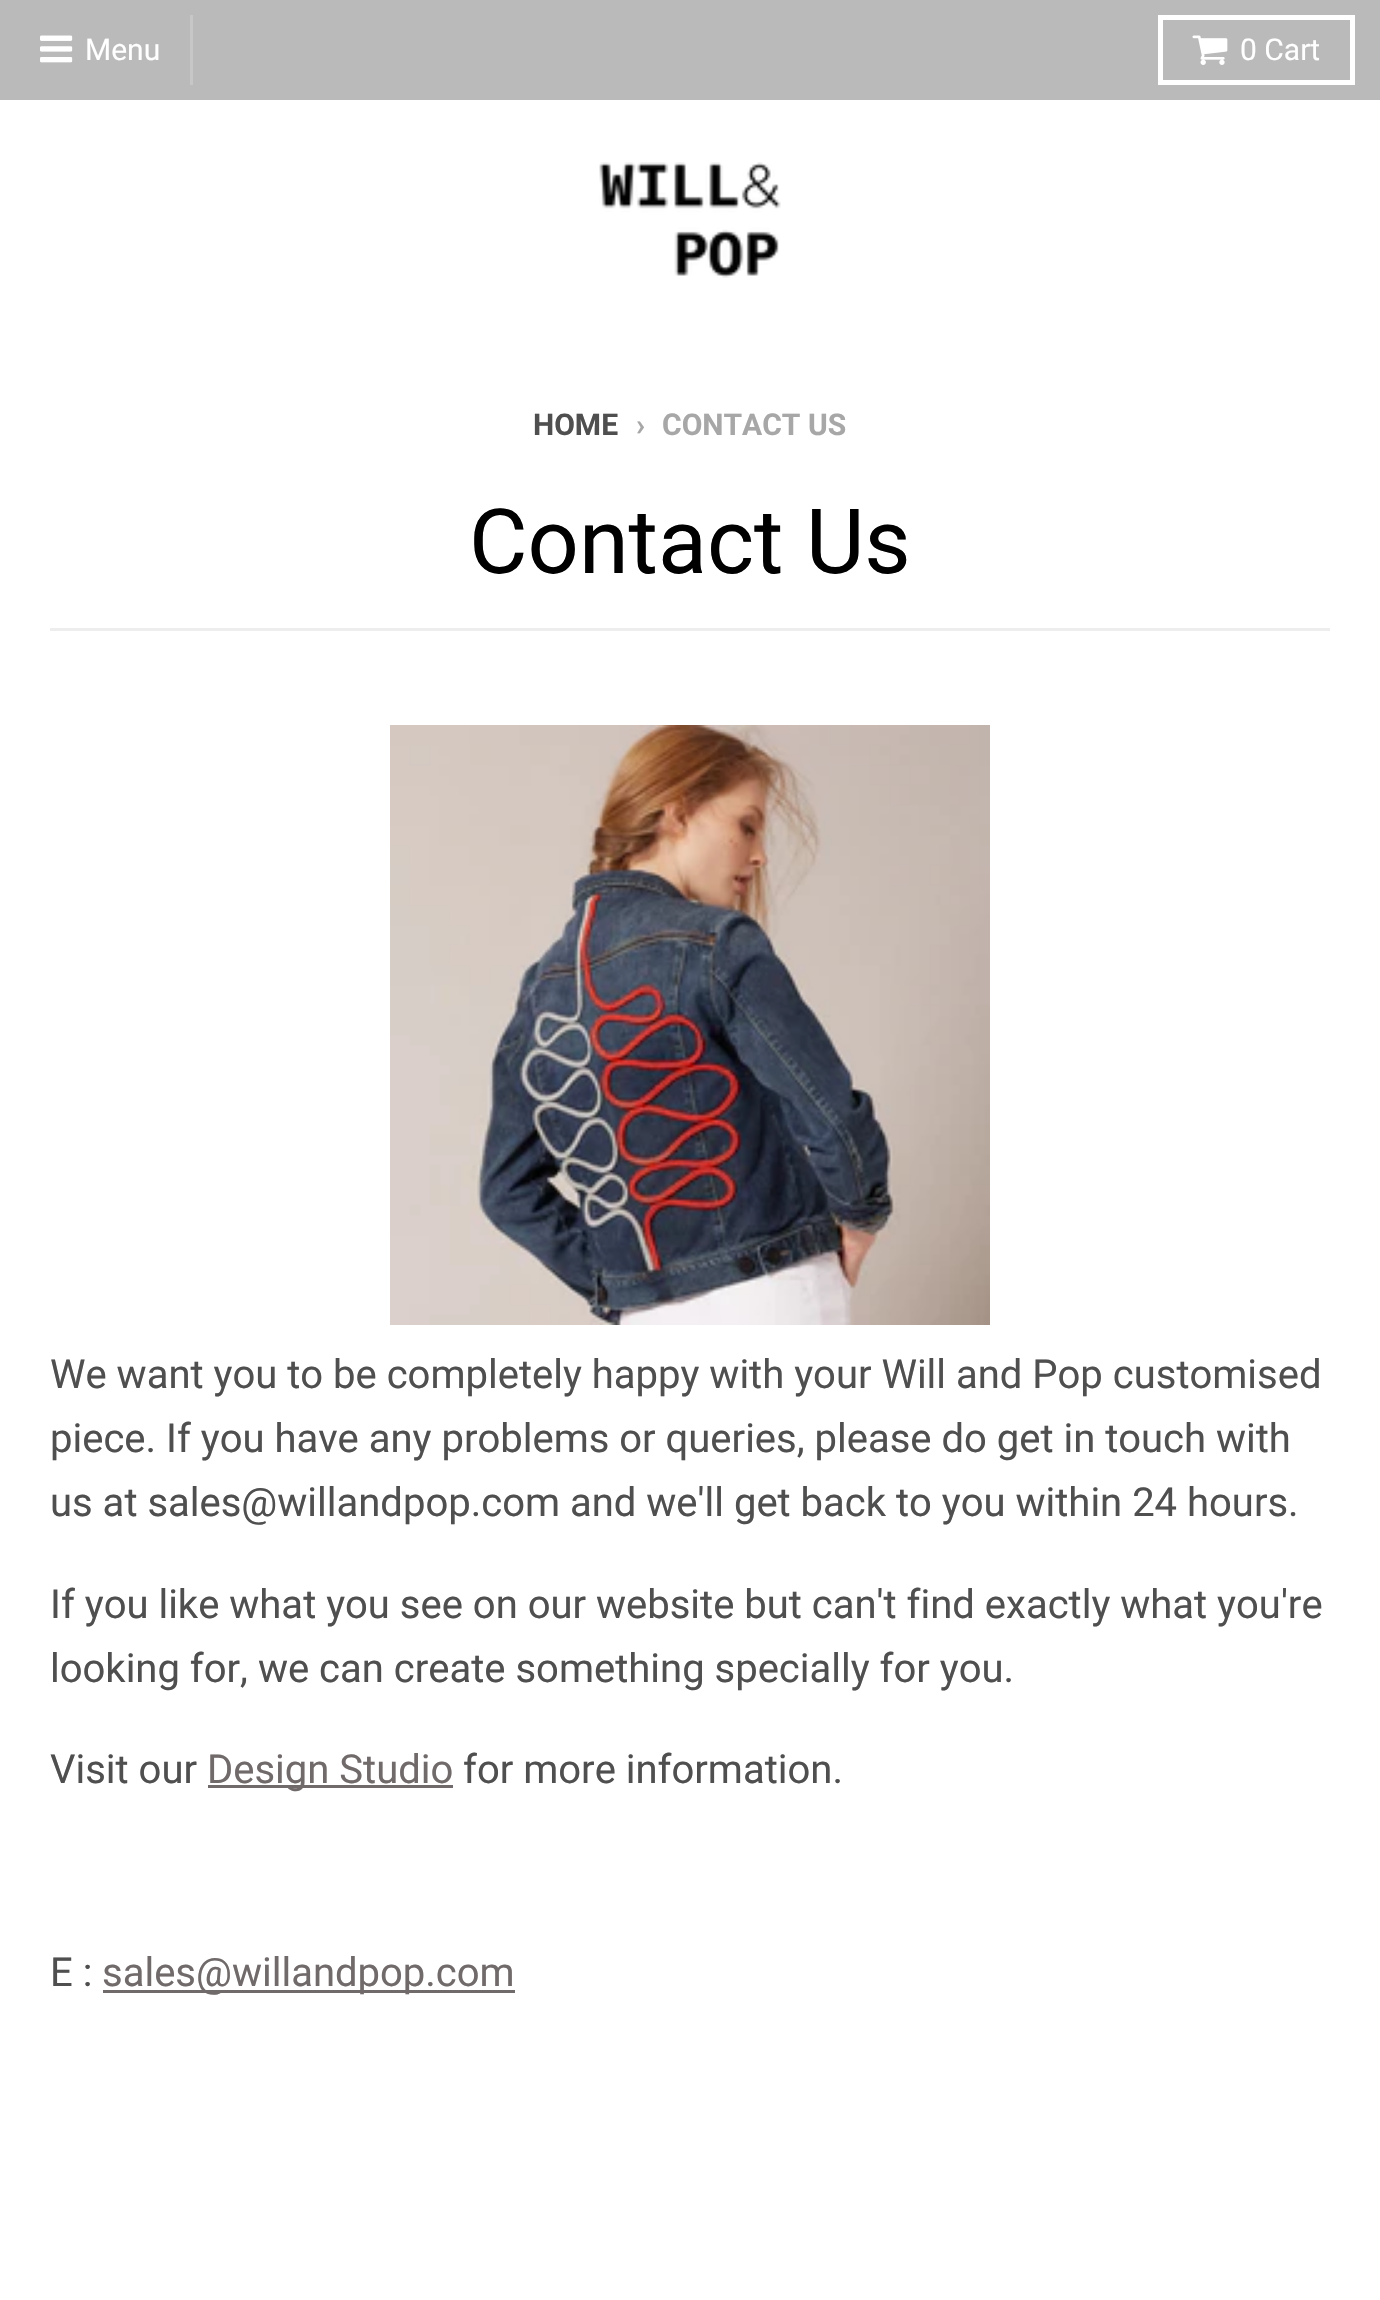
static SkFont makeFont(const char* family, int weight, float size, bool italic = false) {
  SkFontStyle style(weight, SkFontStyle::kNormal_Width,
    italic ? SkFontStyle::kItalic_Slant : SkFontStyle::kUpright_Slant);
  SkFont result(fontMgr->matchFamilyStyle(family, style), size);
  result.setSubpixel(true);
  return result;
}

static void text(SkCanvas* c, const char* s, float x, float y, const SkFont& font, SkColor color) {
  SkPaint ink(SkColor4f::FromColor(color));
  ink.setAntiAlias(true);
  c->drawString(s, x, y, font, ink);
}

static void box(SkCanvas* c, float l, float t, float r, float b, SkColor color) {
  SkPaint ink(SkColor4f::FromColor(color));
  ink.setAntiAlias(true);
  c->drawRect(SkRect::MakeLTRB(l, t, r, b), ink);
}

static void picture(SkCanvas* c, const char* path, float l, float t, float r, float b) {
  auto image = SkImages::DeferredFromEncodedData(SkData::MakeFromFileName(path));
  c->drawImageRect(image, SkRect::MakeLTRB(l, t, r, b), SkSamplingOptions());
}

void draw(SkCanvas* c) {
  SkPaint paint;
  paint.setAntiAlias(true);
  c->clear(0xffffffff);
  box(c, 0, 0, 1380, 100, 0xffbbbaba);
  box(c, 190, 15, 193, 85, 0xffc8c7c7);
  picture(c, "img_01.png", 40, 35, 73, 63);
  SkFont face1 = makeFont("Roboto", 400, 30);
  text(c, "Menu", 85, 60, face1, 0xffffffff);
  paint.setStyle(SkPaint::kStroke_Style);
  paint.setStrokeWidth(5);
  paint.setColor(0xffffffff);
  c->drawRect(SkRect::MakeLTRB(1160.5f, 17.5f, 1352.5f, 82.5f), paint);
  picture(c, "img_02.png", 1192, 35, 1228, 65);
  text(c, "0 Cart", 1240, 60, face1, 0xffffffff);
  picture(c, "img_03.png", 599, 162, 781, 278);
  SkFont face2 = makeFont("Roboto", 700, 30);
  text(c, "HOME", 533, 435, face2, 0xff4f4f4f);
  text(c, "›", 636, 435, face2, 0xffa7a7a7);
  text(c, "CONTACT US", 662, 435, face2, 0xffa7a7a7);
  box(c, 50, 628, 1330, 631, 0xffededed);
  SkFont face3 = makeFont("Roboto", 400, 90);
  text(c, "Contact Us", 469, 573, face3, 0xff000000);
  picture(c, "img_04.png", 390, 725, 990, 1325);
  SkFont face4 = makeFont("Roboto", 400, 40);
  text(c, "We want you to be completely happy with your Will and Pop customised", 50, 1388, face4, 0xff4f4f4f);
  text(c, "piece. If you have any problems or queries, please do get in touch with", 50, 1452, face4, 0xff4f4f4f);
  text(c, "us at sales@willandpop.com and we'll get back to you within 24 hours.", 50, 1516, face4, 0xff4f4f4f);
  text(c, "If you like what you see on our website but can't find exactly what you're", 50, 1618, face4, 0xff4f4f4f);
  text(c, "looking for, we can create something specially for you.", 50, 1682, face4, 0xff4f4f4f);
  text(c, "Visit our", 50, 1783, face4, 0xff4f4f4f);
  box(c, 208, 1785, 453, 1788, 0xff716a6a);
  text(c, "Design Studio", 207, 1783, face4, 0xff716a6a);
  text(c, "for more information.", 463, 1783, face4, 0xff4f4f4f);
  text(c, "E :", 50, 1986, face4, 0xff4f4f4f);
  box(c, 103, 1990, 515, 1993, 0xff716a6a);
  text(c, "sales@willandpop.com", 102, 1986, face4, 0xff716a6a);
}
